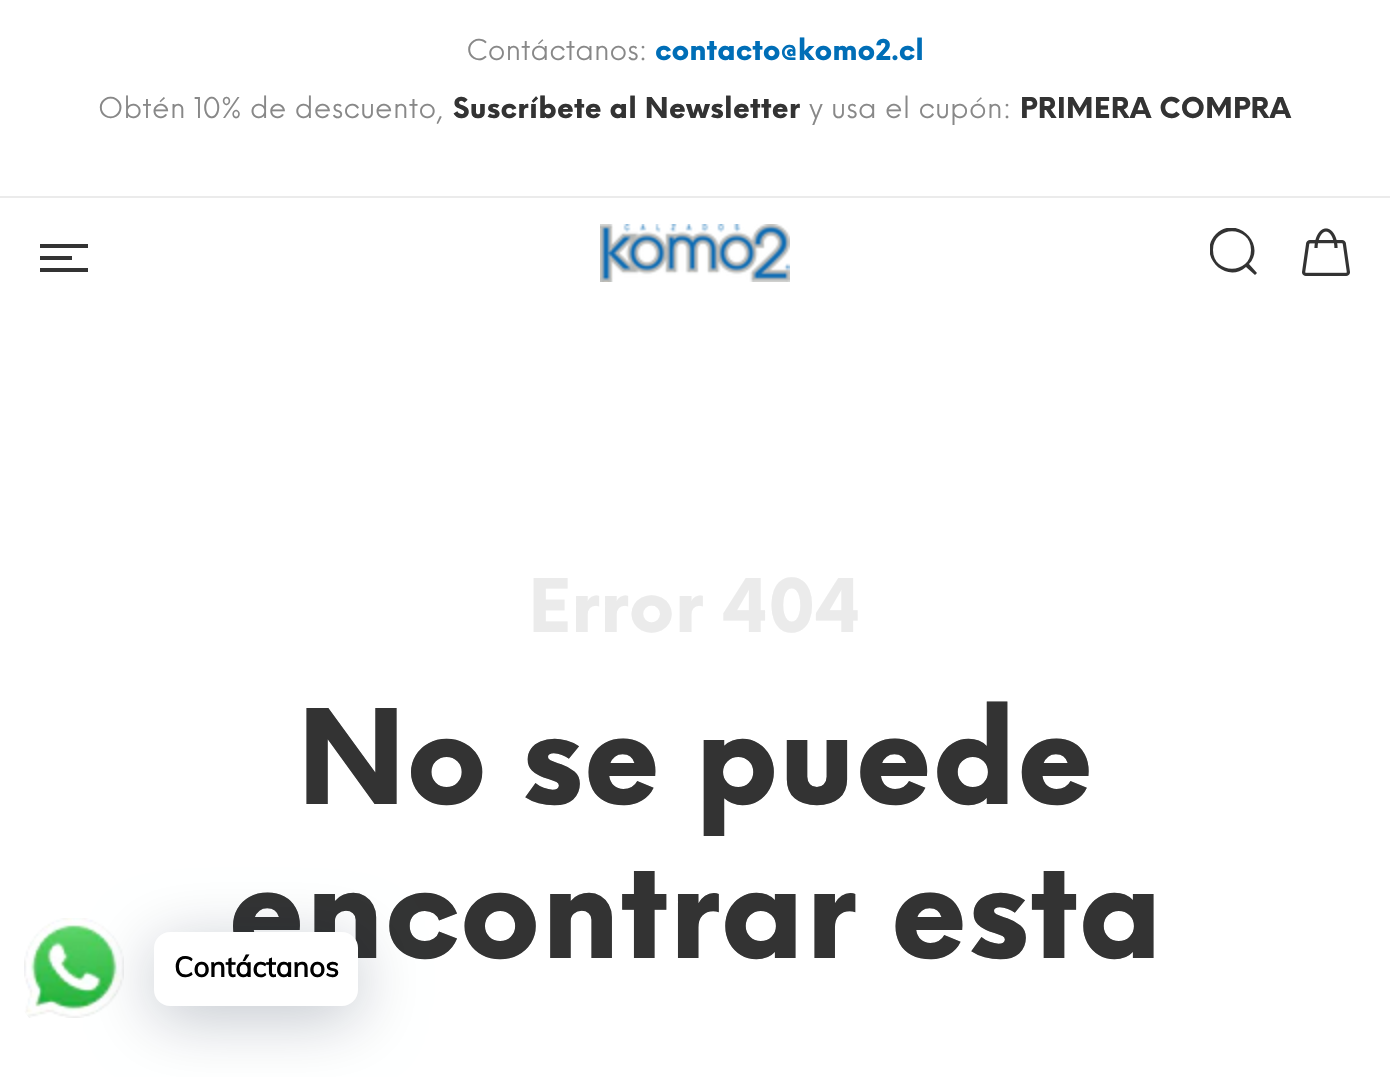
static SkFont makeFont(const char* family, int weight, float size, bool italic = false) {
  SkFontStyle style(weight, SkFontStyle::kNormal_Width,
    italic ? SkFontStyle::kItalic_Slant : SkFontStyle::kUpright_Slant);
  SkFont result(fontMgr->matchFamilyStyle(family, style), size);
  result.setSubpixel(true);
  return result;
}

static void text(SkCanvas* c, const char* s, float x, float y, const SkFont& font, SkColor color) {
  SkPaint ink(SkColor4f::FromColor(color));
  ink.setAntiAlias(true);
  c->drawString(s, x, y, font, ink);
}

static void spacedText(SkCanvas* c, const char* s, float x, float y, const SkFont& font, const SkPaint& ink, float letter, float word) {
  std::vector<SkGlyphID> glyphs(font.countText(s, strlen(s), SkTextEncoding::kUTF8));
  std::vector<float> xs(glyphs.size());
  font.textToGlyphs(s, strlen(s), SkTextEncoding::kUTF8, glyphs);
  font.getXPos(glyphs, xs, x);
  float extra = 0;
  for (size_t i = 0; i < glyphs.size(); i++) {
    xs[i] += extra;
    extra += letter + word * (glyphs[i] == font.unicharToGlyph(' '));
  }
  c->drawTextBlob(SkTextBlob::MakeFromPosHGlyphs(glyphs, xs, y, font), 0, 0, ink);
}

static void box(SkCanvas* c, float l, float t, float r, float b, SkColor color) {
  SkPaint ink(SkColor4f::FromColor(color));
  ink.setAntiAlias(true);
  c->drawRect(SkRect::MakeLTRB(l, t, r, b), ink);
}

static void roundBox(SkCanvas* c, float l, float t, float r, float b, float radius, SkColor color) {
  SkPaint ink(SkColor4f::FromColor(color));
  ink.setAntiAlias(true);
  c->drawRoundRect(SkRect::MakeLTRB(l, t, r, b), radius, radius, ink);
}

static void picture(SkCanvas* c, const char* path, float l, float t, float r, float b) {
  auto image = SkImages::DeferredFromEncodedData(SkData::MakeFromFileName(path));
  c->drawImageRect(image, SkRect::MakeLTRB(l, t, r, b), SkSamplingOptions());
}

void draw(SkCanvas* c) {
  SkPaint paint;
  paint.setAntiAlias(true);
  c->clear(0xffffffff);
  box(c, 0, 196, 1390, 198, 0xffebebeb);
  SkFont face1 = makeFont("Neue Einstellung", 400, 28);
  text(c, "Contáctanos:", 466, 60, face1, 0xff888888);
  SkFont face2 = makeFont("Neue Einstellung", 800, 28);
  text(c, "contacto@komo2.cl", 655, 60, face2, 0xff006eb7);
  paint.setColor(0xff888888);
  spacedText(c, "Obtén 10% de descuento,", 98, 118, face1, paint, 0.25f, 0);
  paint.setColor(0xff333333);
  spacedText(c, "Suscríbete al Newsletter", 453, 118, face2, paint, 0.25f, 0);
  paint.setColor(0xff888888);
  spacedText(c, "y usa el cupón:", 809, 118, face1, paint, 0.25f, 0);
  paint.setColor(0xff333333);
  spacedText(c, "PRIMERA COMPRA", 1020, 118, face2, paint, 0.25f, 0);
  box(c, 40, 244, 88, 248, 0xff333333);
  box(c, 40, 256, 72, 260, 0xff333333);
  box(c, 40, 268, 88, 272, 0xff333333);
  picture(c, "img_01.png", 600, 224, 790, 282);
  c->save();
  c->clipRect(SkRect::MakeLTRB(1210, 228, 1258, 276));
  c->drawPath(SkPathBuilder().moveTo(1257, 273).lineTo(1249, 264).cubicTo(1267, 245, 1237, 214, 1216, 234).cubicTo(1196, 255, 1226, 285, 1246, 267).lineTo(1255, 275).close().moveTo(1213, 250).cubicTo(1213, 225, 1251, 225, 1251, 250).cubicTo(1251, 275, 1213, 275, 1213, 250).close().detach(), paint);
  c->restore();
  picture(c, "img_02.png", 1302, 228, 1350, 276);
  SkFont face3 = makeFont("Neue Einstellung", 800, 72);
  text(c, "Error 404", 528, 632, face3, 0xffebebeb);
  SkFont face4 = makeFont("Neue Einstellung", 800, 128);
  text(c, "No se puede", 297, 804, face4, 0xff333333);
  text(c, "encontrar esta", 228, 958, face4, 0xff333333);
  picture(c, "img_03.png", 24, 918, 124, 1018);
  paint.setColor(0x3d00122e);
  paint.setMaskFilter(SkMaskFilter::MakeBlur(kNormal_SkBlurStyle, 32));
  c->drawRoundRect(SkRect::MakeLTRB(154, 944, 358, 1018), 16, 16, paint);
  paint.setMaskFilter(nullptr);
  roundBox(c, 154, 932, 358, 1006, 16, 0xffffffff);
  SkFont face5 = makeFont("Muli", 700, 28);
  text(c, "Contáctanos", 174, 977, face5, 0xff000000);
}
